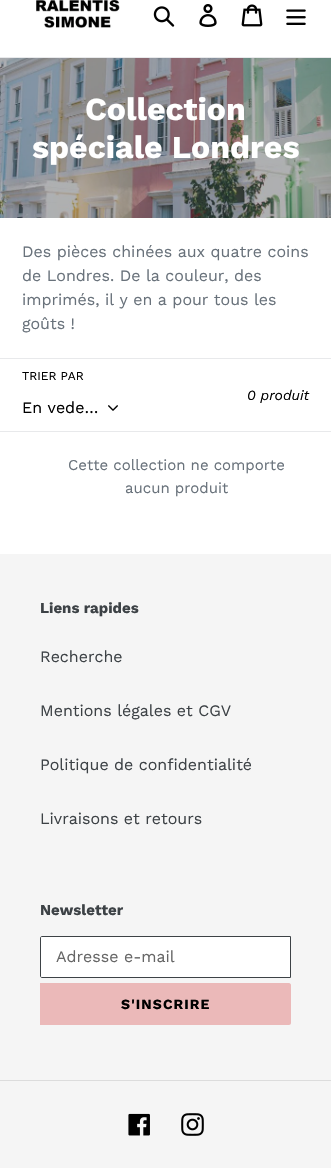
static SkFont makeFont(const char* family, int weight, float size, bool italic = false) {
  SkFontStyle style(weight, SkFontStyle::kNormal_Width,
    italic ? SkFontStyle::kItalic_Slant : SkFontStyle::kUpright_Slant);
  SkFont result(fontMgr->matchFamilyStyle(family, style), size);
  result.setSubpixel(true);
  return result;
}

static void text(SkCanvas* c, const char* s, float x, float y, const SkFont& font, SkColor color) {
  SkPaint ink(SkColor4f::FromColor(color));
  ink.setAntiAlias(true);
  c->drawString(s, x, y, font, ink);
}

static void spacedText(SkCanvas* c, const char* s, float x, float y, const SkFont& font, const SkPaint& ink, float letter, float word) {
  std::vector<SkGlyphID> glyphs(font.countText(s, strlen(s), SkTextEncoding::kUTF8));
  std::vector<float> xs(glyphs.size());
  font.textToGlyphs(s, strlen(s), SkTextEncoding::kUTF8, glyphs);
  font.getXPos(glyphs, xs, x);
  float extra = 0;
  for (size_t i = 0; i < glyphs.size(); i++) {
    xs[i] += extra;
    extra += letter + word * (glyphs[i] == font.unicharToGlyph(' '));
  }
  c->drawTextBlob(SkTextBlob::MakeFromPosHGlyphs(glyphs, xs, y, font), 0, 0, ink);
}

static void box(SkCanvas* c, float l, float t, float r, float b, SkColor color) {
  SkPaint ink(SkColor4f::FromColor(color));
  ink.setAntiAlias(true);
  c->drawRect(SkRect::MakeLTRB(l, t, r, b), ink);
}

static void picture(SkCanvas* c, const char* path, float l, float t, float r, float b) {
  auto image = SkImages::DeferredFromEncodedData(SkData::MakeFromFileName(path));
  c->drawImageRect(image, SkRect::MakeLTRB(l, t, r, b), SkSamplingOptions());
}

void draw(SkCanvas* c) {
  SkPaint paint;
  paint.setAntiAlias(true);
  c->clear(0xffffffff);
  box(c, 0, 57, 331, 58, 0xffe8e9eb);
  picture(c, "img_01.png", 36, 0, 120, 28);
  picture(c, "img_02.png", 153, 6, 175, 27);
  picture(c, "img_03.png", 199, 4, 217, 27);
  picture(c, "img_04.png", 241, 4, 263, 27);
  picture(c, "img_05.png", 286, 9, 306, 25);
  picture(c, "img_06.png", 0, 58, 331, 218);
  SkFont face1 = makeFont("Work Sans", 700, 32);
  text(c, "Collection", 85, 120, face1, 0xffffffff);
  text(c, "spéciale Londres", 32, 158, face1, 0xffffffff);
  SkFont face2 = makeFont("Work Sans", 400, 16);
  text(c, "Des pièces chinées aux quatre coins", 22, 257, face2, 0xff69727b);
  text(c, "de Londres. De la couleur, des", 22, 281, face2, 0xff69727b);
  text(c, "imprimés, il y en a pour tous les", 22, 305, face2, 0xff69727b);
  text(c, "goûts !", 22, 329, face2, 0xff69727b);
  box(c, 0, 358, 331, 359, 0xffe8e9eb);
  box(c, 0, 431, 331, 432, 0xffe8e9eb);
  SkFont face3 = makeFont("Work Sans", 400, 12);
  text(c, "TRIER PAR", 22, 380, face3, 0xff000000);
  text(c, "En vede…", 22, 413, face2, 0xff000000);
  picture(c, "img_07.png", 108, 405, 118, 411);
  SkFont face4 = makeFont("Work Sans", 400, 14, true);
  text(c, "0 produit", 247, 400, face4, 0xff000000);
  SkFont face5 = makeFont("Work Sans", 400, 15);
  text(c, "Cette collection ne comporte", 68, 470, face5, 0xff69727b);
  text(c, "aucun produit", 125, 493, face5, 0xff69727b);
  box(c, 0, 554, 331, 1168, 0xfff5f5f5);
  SkFont face6 = makeFont("Work Sans", 700, 15);
  text(c, "Liens rapides", 40, 613, face6, 0xff3d4246);
  text(c, "Recherche", 40, 662, face2, 0xff3d4246);
  text(c, "Mentions légales et CGV", 40, 716, face2, 0xff3d4246);
  text(c, "Politique de confidentialité", 40, 770, face2, 0xff3d4246);
  text(c, "Livraisons et retours", 40, 824, face2, 0xff3d4246);
  text(c, "Newsletter", 40, 915, face6, 0xff3d4246);
  paint.setColor(0xffffffff);
  c->drawPath(SkPathBuilder().moveTo(42, 936.5f).lineTo(290.5f, 936.5f).lineTo(290.5f, 977.5f).lineTo(42, 977.5f).cubicTo(41, 977.5f, 40.5f, 977, 40.5f, 976).lineTo(40.5f, 938).cubicTo(40.5f, 937, 41, 936.5f, 42, 936.5f).close().detach(), paint);
  paint.setStyle(SkPaint::kStroke_Style);
  paint.setStrokeWidth(1);
  paint.setColor(0xff3d4246);
  c->drawPath(SkPathBuilder().moveTo(42, 936.5f).lineTo(290.5f, 936.5f).lineTo(290.5f, 977.5f).lineTo(42, 977.5f).cubicTo(41, 977.5f, 40.5f, 977, 40.5f, 976).lineTo(40.5f, 938).cubicTo(40.5f, 937, 41, 936.5f, 42, 936.5f).close().detach(), paint);
  text(c, "Adresse e-mail", 56, 962, face2, 0xff666666);
  paint.setStyle(SkPaint::kFill_Style);
  paint.setColor(0xffebb9b9);
  c->drawPath(SkPathBuilder().moveTo(40, 983).lineTo(289, 983).cubicTo(290, 983, 291, 984, 291, 985).lineTo(291, 1023).cubicTo(291, 1024, 290, 1025, 289, 1025).lineTo(40, 1025).close().detach(), paint);
  SkFont face7 = makeFont("Work Sans", 700, 14);
  paint.setColor(0xff000000);
  spacedText(c, "S'INSCRIRE", 121, 1009, face7, paint, 1.1f, 0);
  box(c, 0, 1080, 331, 1081, 0xffdcdcdc);
  picture(c, "img_08.png", 128, 1113, 150, 1136);
  picture(c, "img_09.png", 181, 1113, 204, 1136);
}
